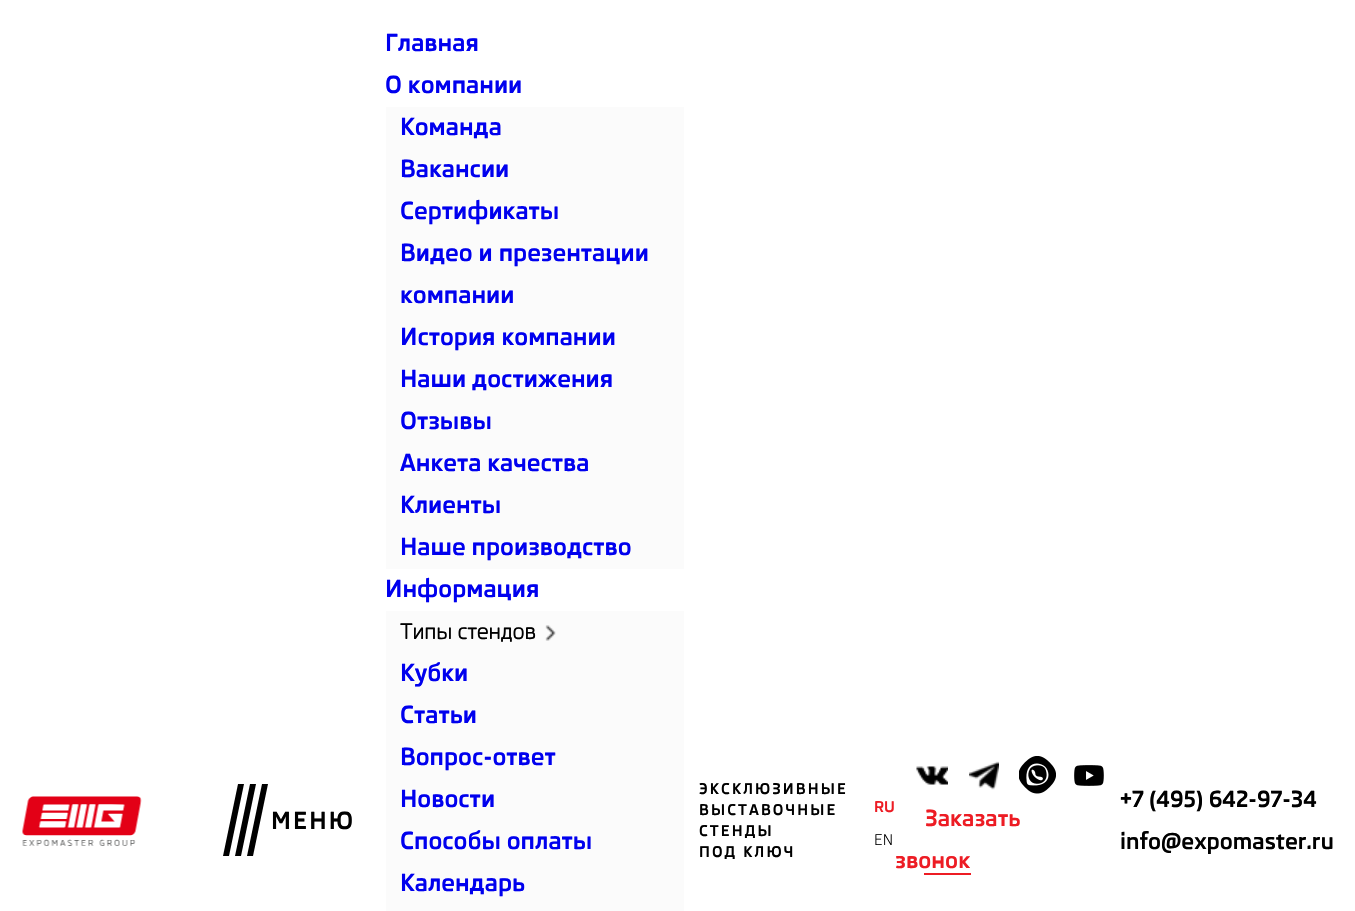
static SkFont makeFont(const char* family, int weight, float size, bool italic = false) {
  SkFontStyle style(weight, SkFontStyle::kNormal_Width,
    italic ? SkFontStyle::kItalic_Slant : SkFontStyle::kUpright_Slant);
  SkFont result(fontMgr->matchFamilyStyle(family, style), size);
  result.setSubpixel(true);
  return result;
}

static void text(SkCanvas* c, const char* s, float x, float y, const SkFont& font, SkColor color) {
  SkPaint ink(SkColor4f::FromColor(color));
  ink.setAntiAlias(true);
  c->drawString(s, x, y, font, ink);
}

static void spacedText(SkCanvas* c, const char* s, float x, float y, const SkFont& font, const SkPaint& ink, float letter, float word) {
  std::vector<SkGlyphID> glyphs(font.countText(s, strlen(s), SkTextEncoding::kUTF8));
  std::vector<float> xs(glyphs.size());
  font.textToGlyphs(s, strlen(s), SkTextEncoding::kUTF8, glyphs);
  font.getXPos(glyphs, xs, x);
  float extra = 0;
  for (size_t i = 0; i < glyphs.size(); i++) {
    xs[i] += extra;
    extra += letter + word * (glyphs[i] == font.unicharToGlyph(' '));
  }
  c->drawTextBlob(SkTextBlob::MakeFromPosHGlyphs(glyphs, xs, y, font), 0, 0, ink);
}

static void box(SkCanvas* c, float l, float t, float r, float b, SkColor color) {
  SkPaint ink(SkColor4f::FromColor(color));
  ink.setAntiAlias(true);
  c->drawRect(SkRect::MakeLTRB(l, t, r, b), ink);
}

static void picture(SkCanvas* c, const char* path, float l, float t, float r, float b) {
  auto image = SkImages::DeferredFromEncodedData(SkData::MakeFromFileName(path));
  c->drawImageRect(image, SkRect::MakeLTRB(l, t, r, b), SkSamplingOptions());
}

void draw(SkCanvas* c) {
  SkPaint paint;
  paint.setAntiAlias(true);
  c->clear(0xffffffff);
  picture(c, "img_01.png", 22, 796, 142, 846);
  paint.setColor(0xff000000);
  c->drawPath(SkPathBuilder().moveTo(238, 784).lineTo(244, 784).lineTo(229, 856).lineTo(223, 856).close().detach(), paint);
  c->drawPath(SkPathBuilder().moveTo(250, 784).lineTo(256, 784).lineTo(241, 856).lineTo(235, 856).close().detach(), paint);
  c->drawPath(SkPathBuilder().moveTo(262, 784).lineTo(268, 784).lineTo(253, 856).lineTo(247, 856).close().detach(), paint);
  SkFont face1 = makeFont("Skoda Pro", 700, 24);
  spacedText(c, "МЕНЮ", 271, 829, face1, paint, 2.1f, 0);
  text(c, "Главная", 385, 51, face1, 0xff0000ee);
  text(c, "О компании", 385, 93, face1, 0xff0000ee);
  box(c, 386, 107, 684, 569, 0xfffbfbfb);
  text(c, "Команда", 400, 135, face1, 0xff0000ee);
  text(c, "Вакансии", 400, 177, face1, 0xff0000ee);
  text(c, "Сертификаты", 400, 219, face1, 0xff0000ee);
  text(c, "Видео и презентации", 400, 261, face1, 0xff0000ee);
  text(c, "компании", 400, 303, face1, 0xff0000ee);
  text(c, "История компании", 400, 345, face1, 0xff0000ee);
  text(c, "Наши достижения", 400, 387, face1, 0xff0000ee);
  text(c, "Отзывы", 400, 429, face1, 0xff0000ee);
  text(c, "Анкета качества", 400, 471, face1, 0xff0000ee);
  text(c, "Клиенты", 400, 513, face1, 0xff0000ee);
  text(c, "Наше производство", 400, 555, face1, 0xff0000ee);
  text(c, "Информация", 385, 597, face1, 0xff0000ee);
  box(c, 386, 611, 684, 911, 0xfffbfbfb);
  SkFont face2 = makeFont("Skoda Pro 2", 700, 21);
  text(c, "Типы стендов", 400, 639, face2, 0xff000000);
  picture(c, "img_02.png", 545, 625, 556, 641);
  text(c, "Кубки", 400, 681, face1, 0xff0000ee);
  text(c, "Статьи", 400, 723, face1, 0xff0000ee);
  text(c, "Вопрос-ответ", 400, 765, face1, 0xff0000ee);
  text(c, "Новости", 400, 807, face1, 0xff0000ee);
  text(c, "Способы оплаты", 400, 849, face1, 0xff0000ee);
  text(c, "Календарь", 400, 891, face1, 0xff0000ee);
  SkFont face3 = makeFont("Skoda Pro", 700, 15);
  spacedText(c, "ЭКСКЛЮЗИВНЫЕ", 699, 794, face3, paint, 2.1f, 0);
  spacedText(c, "ВЫСТАВОЧНЫЕ", 699, 815, face3, paint, 2.1f, 0);
  spacedText(c, "СТЕНДЫ", 699, 836, face3, paint, 2.1f, 0);
  spacedText(c, "ПОД КЛЮЧ", 699, 857, face3, paint, 2.1f, 0);
  text(c, "RU", 874, 812, face3, 0xffed1c24);
  SkFont face4 = makeFont("Skoda Pro", 400, 15);
  text(c, "EN", 874, 845, face4, 0xff000000);
  picture(c, "img_03.png", 916, 766, 948, 785);
  picture(c, "img_04.png", 969, 761, 999, 790);
  picture(c, "img_05.png", 1019, 756, 1056, 794);
  picture(c, "img_06.png", 1074, 765, 1104, 786);
  SkFont face5 = makeFont("Skoda Pro", 700, 22.5f);
  text(c, "Заказать", 925, 826, face5, 0xffed1c24);
  text(c, "звонок", 895, 868, face5, 0xffed1c24);
  box(c, 924, 873, 971, 875, 0xffed1c24);
  text(c, "+7 (495) 642-97-34", 1120, 807, face5, 0xff000000);
  text(c, "info@expomaster.ru", 1120, 849, face5, 0xff000000);
}
